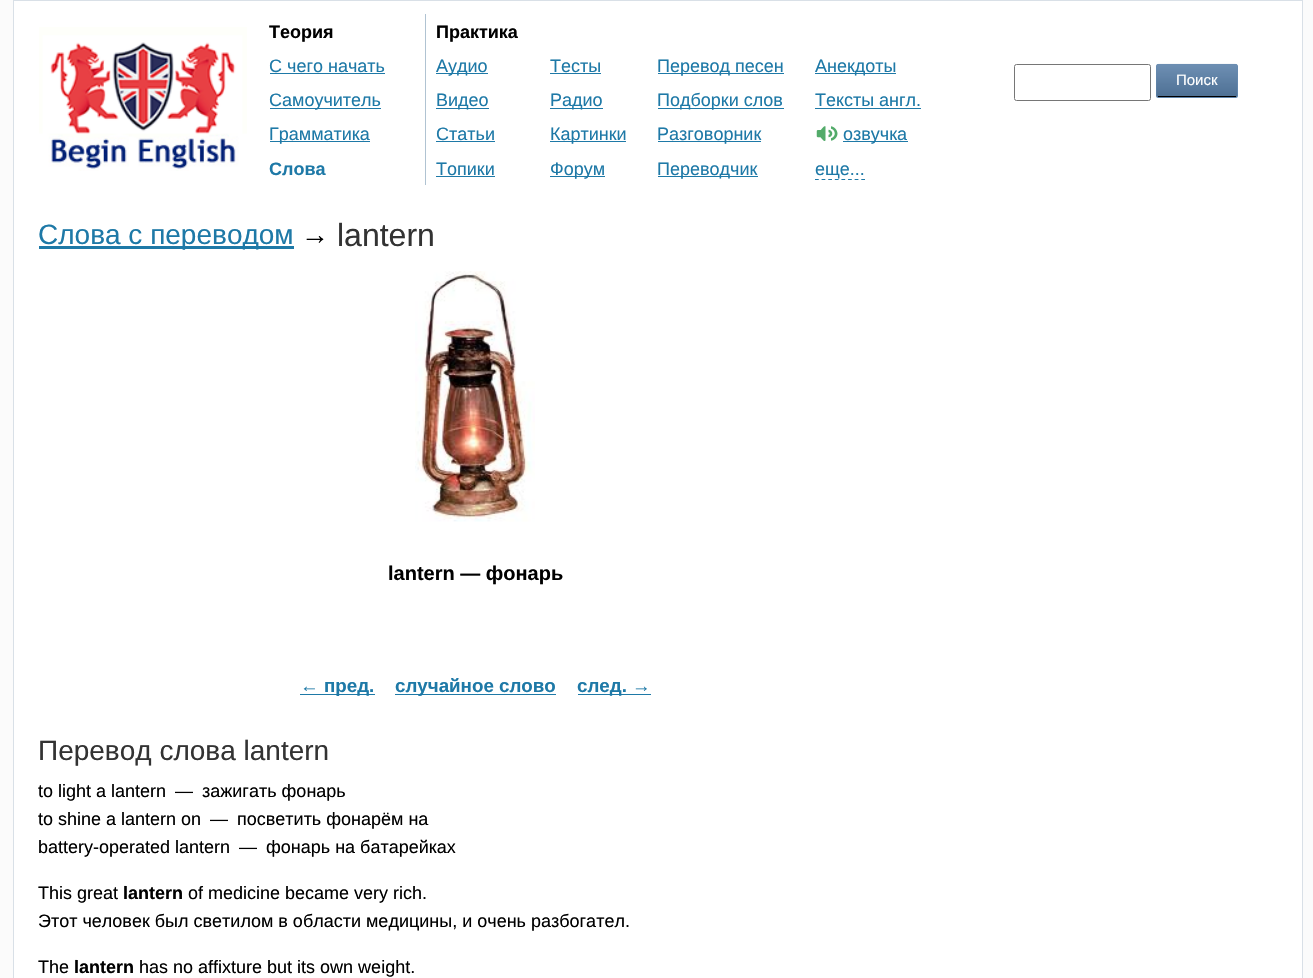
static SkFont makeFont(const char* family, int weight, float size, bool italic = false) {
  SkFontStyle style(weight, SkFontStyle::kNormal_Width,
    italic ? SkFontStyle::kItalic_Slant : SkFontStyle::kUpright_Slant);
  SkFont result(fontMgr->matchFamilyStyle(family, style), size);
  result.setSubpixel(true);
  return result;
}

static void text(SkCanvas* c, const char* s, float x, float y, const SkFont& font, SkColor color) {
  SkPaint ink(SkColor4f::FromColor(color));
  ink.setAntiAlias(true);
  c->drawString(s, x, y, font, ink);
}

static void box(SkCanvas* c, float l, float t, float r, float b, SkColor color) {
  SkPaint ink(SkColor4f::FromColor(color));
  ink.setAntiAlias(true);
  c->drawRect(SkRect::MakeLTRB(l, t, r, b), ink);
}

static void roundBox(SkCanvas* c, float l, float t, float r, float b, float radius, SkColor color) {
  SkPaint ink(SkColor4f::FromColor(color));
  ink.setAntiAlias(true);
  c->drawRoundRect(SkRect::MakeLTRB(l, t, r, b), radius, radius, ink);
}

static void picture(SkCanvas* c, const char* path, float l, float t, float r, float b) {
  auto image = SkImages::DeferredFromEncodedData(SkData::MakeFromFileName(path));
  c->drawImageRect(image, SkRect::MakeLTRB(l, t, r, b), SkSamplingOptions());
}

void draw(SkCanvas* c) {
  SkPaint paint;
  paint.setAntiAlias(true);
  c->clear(0xfffbfbfb);
  paint.setColor(0xffffffff);
  c->drawRect(SkRect::MakeLTRB(13.5f, 0.5f, 1302.5f, 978.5f), paint);
  paint.setStyle(SkPaint::kStroke_Style);
  paint.setStrokeWidth(1);
  paint.setColor(0xffd9e0e7);
  c->drawRect(SkRect::MakeLTRB(13.5f, 0.5f, 1302.5f, 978.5f), paint);
  picture(c, "img_01.png", 39, 27, 247, 171);
  SkFont face1 = makeFont("Liberation Sans", 700, 18);
  text(c, "Теория", 269, 38, face1, 0xff000000);
  SkFont face2 = makeFont("Liberation Sans", 400, 18);
  text(c, "С чего начать", 269, 72, face2, 0xff1e79a7);
  box(c, 270, 73, 385, 74, 0xff1e79a7);
  box(c, 270, 108, 381, 109, 0xff1e79a7);
  text(c, "Самоучитель", 269, 106, face2, 0xff1e79a7);
  box(c, 270, 141, 370, 142, 0xff1e79a7);
  text(c, "Грамматика", 269, 140, face2, 0xff1e79a7);
  text(c, "Слова", 269, 175, face1, 0xff1e79a7);
  box(c, 425, 14, 426, 185, 0xffb0c3d2);
  text(c, "Практика", 436, 38, face1, 0xff000000);
  box(c, 436, 73, 488, 74, 0xff1e79a7);
  text(c, "Аудио", 436, 72, face2, 0xff1e79a7);
  box(c, 436, 108, 489, 109, 0xff1e79a7);
  text(c, "Видео", 436, 106, face2, 0xff1e79a7);
  text(c, "Статьи", 436, 140, face2, 0xff1e79a7);
  box(c, 436, 141, 495, 142, 0xff1e79a7);
  text(c, "Топики", 436, 175, face2, 0xff1e79a7);
  box(c, 436, 176, 495, 177, 0xff1e79a7);
  text(c, "Тесты", 550, 72, face2, 0xff1e79a7);
  box(c, 550, 73, 601, 74, 0xff1e79a7);
  box(c, 550, 108, 603, 109, 0xff1e79a7);
  text(c, "Радио", 550, 106, face2, 0xff1e79a7);
  box(c, 550, 141, 626, 142, 0xff1e79a7);
  text(c, "Картинки", 550, 140, face2, 0xff1e79a7);
  box(c, 550, 176, 605, 177, 0xff1e79a7);
  text(c, "Форум", 550, 175, face2, 0xff1e79a7);
  box(c, 658, 73, 784, 74, 0xff1e79a7);
  text(c, "Перевод песен", 657, 72, face2, 0xff1e79a7);
  box(c, 658, 108, 784, 109, 0xff1e79a7);
  text(c, "Подборки слов", 657, 106, face2, 0xff1e79a7);
  box(c, 658, 141, 761, 142, 0xff1e79a7);
  text(c, "Разговорник", 657, 140, face2, 0xff1e79a7);
  box(c, 658, 176, 758, 177, 0xff1e79a7);
  text(c, "Переводчик", 657, 175, face2, 0xff1e79a7);
  box(c, 815, 73, 896, 74, 0xff1e79a7);
  text(c, "Анекдоты", 815, 72, face2, 0xff1e79a7);
  text(c, "Тексты англ.", 815, 106, face2, 0xff1e79a7);
  box(c, 815, 108, 921, 109, 0xff1e79a7);
  picture(c, "img_02.png", 816, 126, 838, 141);
  box(c, 843, 141, 908, 142, 0xff1e79a7);
  text(c, "озвучка", 843, 140, face2, 0xff1e79a7);
  paint.setStrokeWidth(1.2f);
  paint.setColor(0xff1e79a7);
  paint.setPathEffect(SkDashPathEffect::Make({{3.75f, 2.86f}}, 0));
  c->drawPath(SkPathBuilder().moveTo(815, 179.5f).lineTo(865, 179.5f).detach(), paint);
  paint.setPathEffect(nullptr);
  text(c, "еще...", 815, 175, face2, 0xff1e79a7);
  paint.setStrokeWidth(1);
  paint.setColor(0xff767676);
  c->drawRoundRect(SkRect::MakeLTRB(1014.5f, 64.5f, 1150.5f, 100.5f), 2, 2, paint);
  roundBox(c, 1156, 64, 1238, 98, 2.5f, 0xff658ab0);
  picture(c, "img_03.png", 1156, 63, 1238, 98);
  box(c, 1158, 96, 1236, 97, 0xff000000);
  SkFont face3 = makeFont("Liberation Sans", 400, 15);
  text(c, "Поиск", 1176, 85, face3, 0xffffffff);
  box(c, 39, 246, 294, 249, 0xff1e79a7);
  SkFont face4 = makeFont("Liberation Sans", 400, 28);
  text(c, "Слова с переводом", 38, 244, face4, 0xff1e79a7);
  text(c, "→", 301, 244, face4, 0xff000000);
  SkFont face5 = makeFont("Liberation Sans", 400, 32);
  text(c, "lantern", 337, 246, face5, 0xff333333);
  picture(c, "img_04.png", 415, 271, 535, 522);
  SkFont face6 = makeFont("Liberation Sans", 700, 20);
  text(c, "lantern — фонарь", 388, 580, face6, 0xff000000);
  box(c, 300, 694, 375, 695, 0xff1e79a7);
  SkFont face7 = makeFont("Liberation Sans", 700, 18.75f);
  text(c, "← пред.", 300, 692, face7, 0xff1e79a7);
  box(c, 395, 694, 556, 695, 0xff1e79a7);
  text(c, "случайное слово", 395, 692, face7, 0xff1e79a7);
  box(c, 578, 694, 651, 695, 0xff1e79a7);
  text(c, "след. →", 577, 692, face7, 0xff1e79a7);
  text(c, "Перевод слова lantern", 38, 760, face4, 0xff333333);
  text(c, "to light a lantern", 38, 797, face2, 0xff000000);
  text(c, "— зажигать фонарь", 175, 797, face2, 0xff000000);
  text(c, "to shine a lantern on", 38, 825, face2, 0xff000000);
  text(c, "— посветить фонарём на", 210, 825, face2, 0xff000000);
  text(c, "battery-operated lantern", 38, 853, face2, 0xff000000);
  text(c, "— фонарь на батарейках", 239, 853, face2, 0xff000000);
  text(c, "This great", 38, 899, face2, 0xff000000);
  text(c, "lantern", 123, 899, face1, 0xff000000);
  text(c, "of medicine became very rich.", 188, 899, face2, 0xff000000);
  text(c, "Этот человек был светилом в области медицины, и очень разбогател.", 38, 927, face2, 0xff000000);
  text(c, "The", 38, 973, face2, 0xff000000);
  text(c, "lantern", 74, 973, face1, 0xff000000);
  text(c, "has no affixture but its own weight.", 139, 973, face2, 0xff000000);
}
